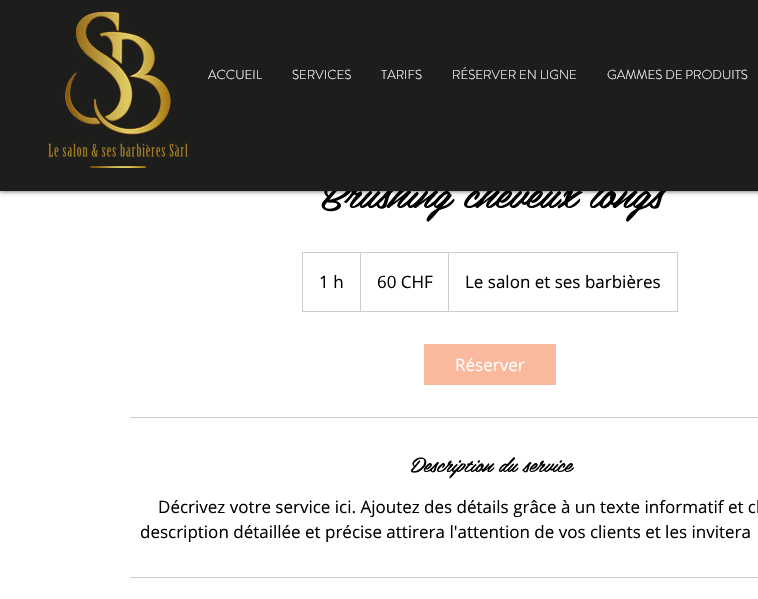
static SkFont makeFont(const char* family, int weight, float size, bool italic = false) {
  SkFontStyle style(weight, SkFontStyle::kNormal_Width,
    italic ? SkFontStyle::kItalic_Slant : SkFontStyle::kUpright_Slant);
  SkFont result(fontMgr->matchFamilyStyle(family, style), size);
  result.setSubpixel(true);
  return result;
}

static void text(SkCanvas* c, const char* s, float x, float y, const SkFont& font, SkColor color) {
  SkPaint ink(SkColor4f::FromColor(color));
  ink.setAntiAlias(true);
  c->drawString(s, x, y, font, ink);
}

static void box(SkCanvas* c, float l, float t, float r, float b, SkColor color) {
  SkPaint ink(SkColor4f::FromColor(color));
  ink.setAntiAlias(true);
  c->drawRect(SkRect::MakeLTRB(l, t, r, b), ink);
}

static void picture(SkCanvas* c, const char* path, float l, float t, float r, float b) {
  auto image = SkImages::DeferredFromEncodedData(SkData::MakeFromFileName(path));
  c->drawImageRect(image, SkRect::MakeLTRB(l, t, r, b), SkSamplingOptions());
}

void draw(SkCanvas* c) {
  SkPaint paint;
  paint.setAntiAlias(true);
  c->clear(0xffffffff);
  paint.setColor(0xb3000000);
  paint.setMaskFilter(SkMaskFilter::MakeBlur(kNormal_SkBlurStyle, 2.5f));
  c->drawRect(SkRect::MakeLTRB(0, 0, 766, 191), paint);
  paint.setMaskFilter(nullptr);
  SkFont face1 = makeFont("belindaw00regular", 400, 40, true);
  text(c, "Brushing cheveux longs", 320, 208, face1, 0xff000000);
  box(c, 0, 0, 758, 191, 0xff1d1d1b);
  picture(c, "img_01.png", 48, 11, 188, 168);
  SkFont face2 = makeFont("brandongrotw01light", 300, 13);
  text(c, "ACCUEIL", 208, 79, face2, 0xffffffff);
  text(c, "SERVICES", 292, 79, face2, 0xffffffff);
  text(c, "TARIFS", 381, 79, face2, 0xffffffff);
  text(c, "RÉSERVER EN LIGNE", 452, 79, face2, 0xffffffff);
  text(c, "GAMMES DE PRODUITS", 607, 79, face2, 0xffffffff);
  paint.setStyle(SkPaint::kStroke_Style);
  paint.setStrokeWidth(1);
  paint.setColor(0xffcccccc);
  c->drawRect(SkRect::MakeLTRB(302.5f, 252.5f, 677.5f, 311.5f), paint);
  SkFont face3 = makeFont("Open Sans", 400, 17);
  text(c, "1 h", 319, 288, face3, 0xff000000);
  paint.setStyle(SkPaint::kFill_Style);
  c->drawPath(SkPathBuilder().moveTo(360, 311).lineTo(360, 252).lineTo(361, 253).lineTo(361, 311).close().detach(), paint);
  text(c, "60 CHF", 377, 288, face3, 0xff000000);
  c->drawPath(SkPathBuilder().moveTo(448, 311).lineTo(448, 252).lineTo(449, 253).lineTo(449, 311).close().detach(), paint);
  text(c, "Le salon et ses barbières", 465, 288, face3, 0xff000000);
  box(c, 424, 344, 556, 385, 0xfffab89d);
  text(c, "Réserver", 455, 371, face3, 0xffffffff);
  box(c, 130, 417, 758, 418, 0xffcccccc);
  SkFont face4 = makeFont("belindaw00regular", 400, 20, true);
  text(c, "Description du service", 410, 472, face4, 0xff000000);
  text(c, "Décrivez votre service ici. Ajoutez des détails grâce à un texte informatif et cl", 158, 513, face3, 0xff000000);
  text(c, "description détaillée et précise attirera l'attention de vos clients et les invitera", 140, 538, face3, 0xff000000);
  box(c, 130, 577, 758, 578, 0xffcccccc);
}
